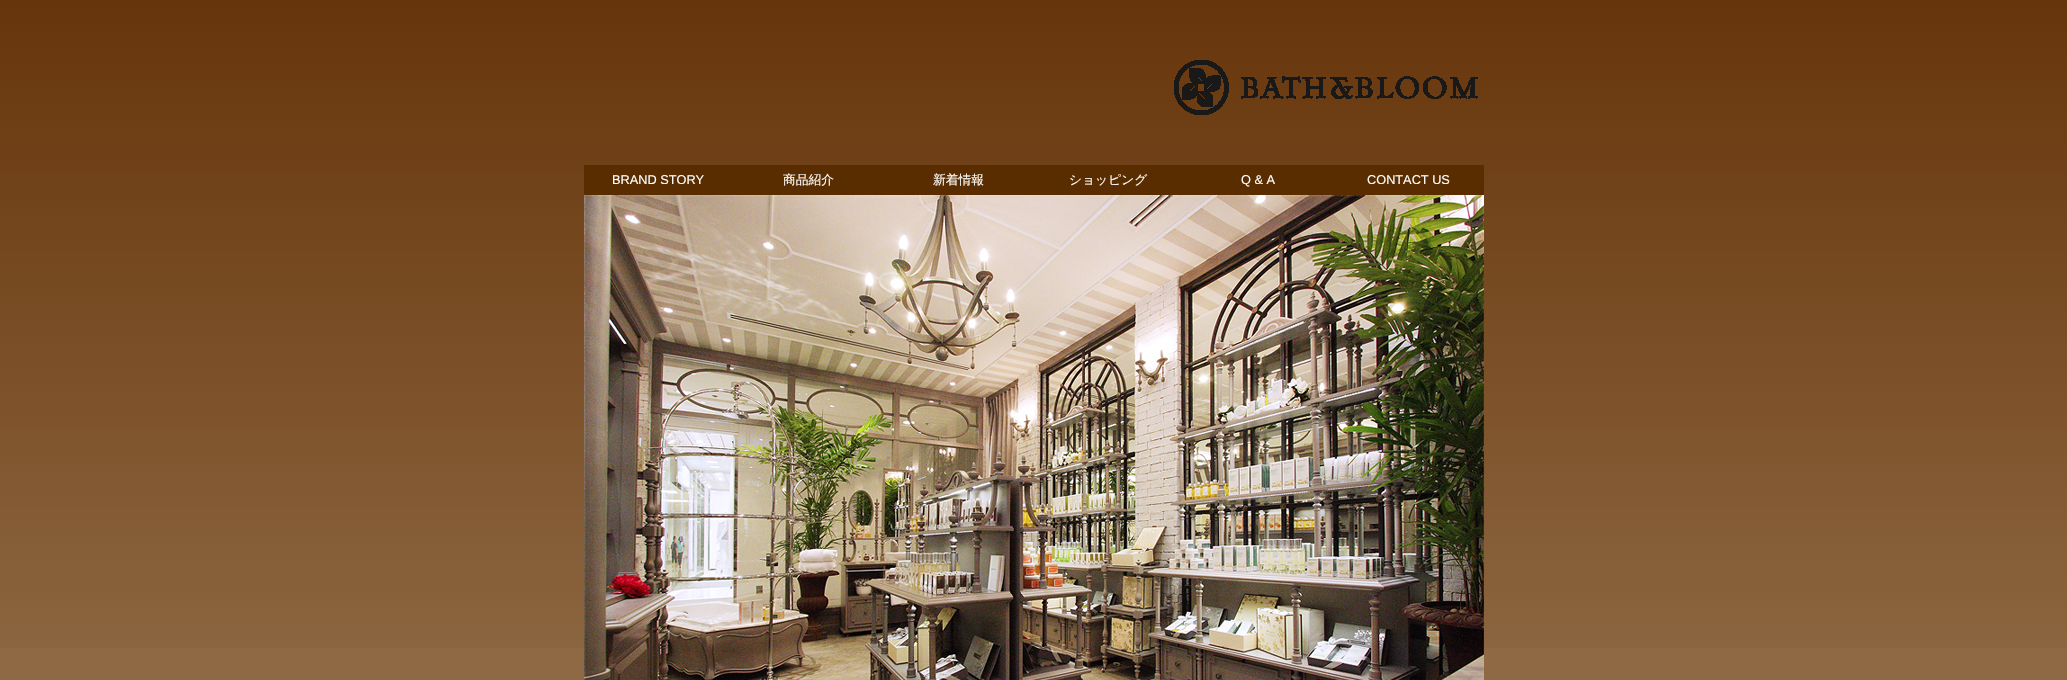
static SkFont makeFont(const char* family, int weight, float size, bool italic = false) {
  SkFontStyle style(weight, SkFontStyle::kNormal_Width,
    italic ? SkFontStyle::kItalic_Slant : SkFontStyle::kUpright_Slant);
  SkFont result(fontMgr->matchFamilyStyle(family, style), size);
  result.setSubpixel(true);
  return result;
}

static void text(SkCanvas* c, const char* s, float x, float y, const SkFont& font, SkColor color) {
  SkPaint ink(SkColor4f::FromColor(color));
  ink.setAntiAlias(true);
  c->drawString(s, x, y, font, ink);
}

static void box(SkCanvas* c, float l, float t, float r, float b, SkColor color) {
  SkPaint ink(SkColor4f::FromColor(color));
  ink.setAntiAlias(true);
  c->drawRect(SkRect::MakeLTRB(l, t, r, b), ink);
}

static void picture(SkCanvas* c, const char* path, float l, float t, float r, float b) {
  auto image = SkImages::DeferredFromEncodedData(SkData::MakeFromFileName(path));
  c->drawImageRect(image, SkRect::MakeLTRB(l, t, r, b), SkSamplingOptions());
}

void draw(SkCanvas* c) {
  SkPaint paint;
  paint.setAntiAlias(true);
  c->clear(0xff8e6943);
  picture(c, "img_01.png", 0, 0, 2067, 648);
  picture(c, "img_02.png", 1174, 60, 1478, 115);
  box(c, 584, 165, 1484, 195, 0xff592d00);
  SkFont face1 = makeFont("Liberation Sans", 400, 12.75f);
  text(c, "BRAND STORY", 612, 184, face1, 0xffffffff);
  SkFont face2 = makeFont("WenQuanYi Zen Hei", 500, 12.75f);
  text(c, "商品紹介", 783, 184, face2, 0xffffffff);
  text(c, "新着情報", 933, 184, face2, 0xffffffff);
  text(c, "ショッピング", 1069, 184, face2, 0xffffffff);
  text(c, "Q & A", 1241, 184, face1, 0xffffffff);
  text(c, "CONTACT US", 1367, 184, face1, 0xffffffff);
  picture(c, "img_03.png", 584, 195, 1484, 680);
}
